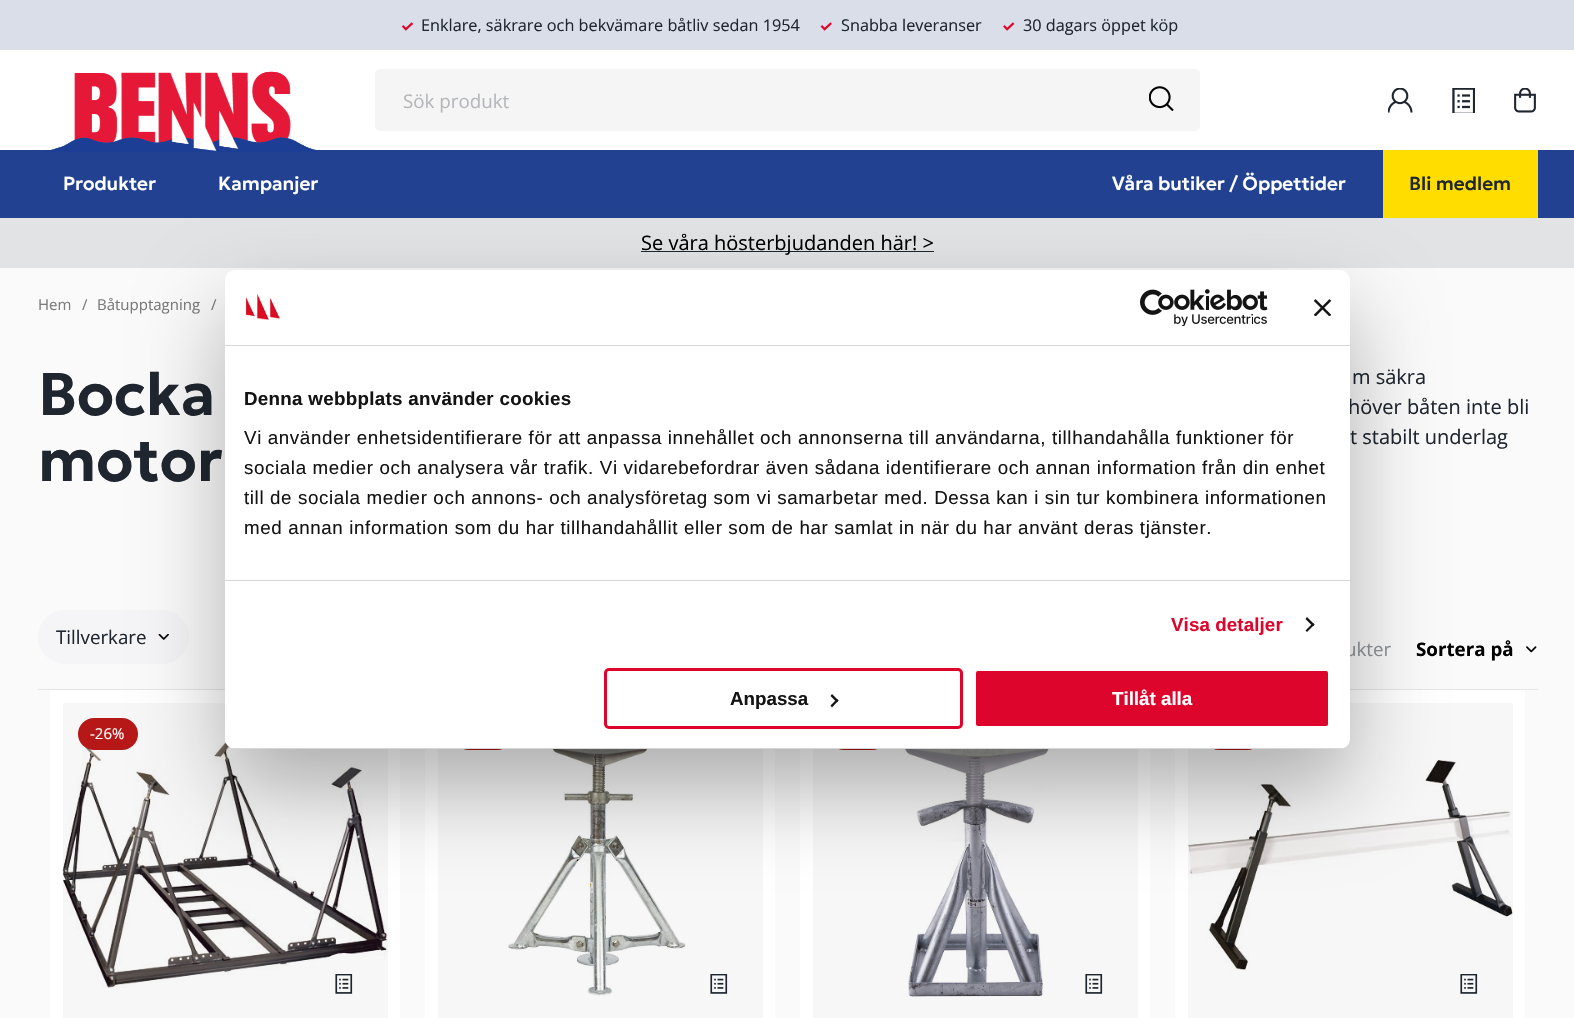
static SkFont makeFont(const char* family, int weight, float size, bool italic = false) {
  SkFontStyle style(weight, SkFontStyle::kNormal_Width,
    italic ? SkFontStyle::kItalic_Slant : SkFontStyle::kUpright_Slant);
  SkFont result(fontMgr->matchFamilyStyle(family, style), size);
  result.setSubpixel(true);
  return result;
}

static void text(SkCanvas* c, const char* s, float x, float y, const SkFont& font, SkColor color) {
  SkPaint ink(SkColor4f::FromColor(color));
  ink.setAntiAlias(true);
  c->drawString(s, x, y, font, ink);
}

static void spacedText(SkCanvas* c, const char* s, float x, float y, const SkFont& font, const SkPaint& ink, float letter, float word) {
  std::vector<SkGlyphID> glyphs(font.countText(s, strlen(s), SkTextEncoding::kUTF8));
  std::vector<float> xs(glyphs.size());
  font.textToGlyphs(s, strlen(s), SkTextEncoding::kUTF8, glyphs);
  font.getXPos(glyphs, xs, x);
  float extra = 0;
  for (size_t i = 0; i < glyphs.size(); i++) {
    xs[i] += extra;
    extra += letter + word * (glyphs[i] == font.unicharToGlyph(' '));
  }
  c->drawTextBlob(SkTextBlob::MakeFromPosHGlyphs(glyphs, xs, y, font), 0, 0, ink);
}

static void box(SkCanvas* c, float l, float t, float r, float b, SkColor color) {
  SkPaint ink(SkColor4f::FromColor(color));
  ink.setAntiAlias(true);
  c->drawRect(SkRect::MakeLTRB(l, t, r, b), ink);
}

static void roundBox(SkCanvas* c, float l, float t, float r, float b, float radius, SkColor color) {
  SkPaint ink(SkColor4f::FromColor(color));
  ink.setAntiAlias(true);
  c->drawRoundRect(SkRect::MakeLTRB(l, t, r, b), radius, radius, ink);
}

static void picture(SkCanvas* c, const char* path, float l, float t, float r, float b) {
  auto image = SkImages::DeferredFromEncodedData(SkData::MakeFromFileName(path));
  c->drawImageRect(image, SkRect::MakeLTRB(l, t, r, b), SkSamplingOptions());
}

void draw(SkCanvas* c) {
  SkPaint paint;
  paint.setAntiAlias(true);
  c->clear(0xfffafafa);
  box(c, 0, 0, 1574, 50, 0xffdadee8);
  picture(c, "img_01.png", 401, 22, 414, 31);
  SkFont face1 = makeFont("Open Sans", 400, 16.25f);
  text(c, "Enklare, säkrare och bekvämare båtliv sedan 1954", 421, 31, face1, 0xff1f262f);
  picture(c, "img_02.png", 820, 22, 832, 31);
  text(c, "Snabba leveranser", 841, 31, face1, 0xff1f262f);
  picture(c, "img_03.png", 1003, 22, 1015, 31);
  text(c, "30 dagars öppet köp", 1023, 31, face1, 0xff1f262f);
  box(c, 0, 50, 1574, 150, 0xffffffff);
  box(c, 0, 150, 1574, 218, 0xff224190);
  picture(c, "img_04.png", 42, 71, 325, 152);
  roundBox(c, 375, 69, 1200, 131, 5, 0xfff5f5f5);
  SkFont face2 = makeFont("Open Sans", 400, 18.75f);
  text(c, "Sök produkt", 403, 108, face2, 0xffb5b7ba);
  picture(c, "img_05.png", 1149, 86, 1174, 111);
  picture(c, "img_06.png", 1388, 88, 1413, 113);
  picture(c, "img_07.png", 1452, 88, 1475, 113);
  picture(c, "img_08.png", 1514, 88, 1536, 113);
  SkFont face3 = makeFont("Geologica", 500, 18.75f);
  text(c, "Produkter", 63, 190, face3, 0xffffffff);
  text(c, "Kampanjer", 218, 190, face3, 0xffffffff);
  text(c, "Våra butiker / Öppettider", 1112, 190, face3, 0xffffffff);
  box(c, 1383, 150, 1538, 218, 0xffffdd00);
  text(c, "Bli medlem", 1409, 190, face3, 0xff1f262f);
  box(c, 0, 218, 1574, 268, 0xffe1e3e5);
  box(c, 641, 251, 934, 252, 0xff1f262f);
  SkFont face4 = makeFont("Open Sans", 400, 20);
  text(c, "Se våra hösterbjudanden här! >", 641, 250, face4, 0xff000000);
  SkFont face5 = makeFont("Open Sans", 400, 15);
  text(c, "Hem", 38, 310, face5, 0xff7a7a7a);
  text(c, "/", 82, 310, face5, 0xff7a7a7a);
  text(c, "Båtupptagning", 97, 310, face5, 0xff7a7a7a);
  text(c, "/", 211, 310, face5, 0xff7a7a7a);
  SkFont face6 = makeFont("Geologica", 600, 60);
  text(c, "Bocka", 38, 415, face6, 0xff1f262f);
  text(c, "motor", 38, 481, face6, 0xff1f262f);
  text(c, "m säkra", 1352, 384, face4, 0xff1f262f);
  text(c, "höver båten inte bli", 1348, 414, face4, 0xff1f262f);
  text(c, "t stabilt underlag", 1350, 444, face4, 0xff1f262f);
  box(c, 38, 689, 225, 690, 0xffe3e5e8);
  roundBox(c, 38, 610, 189, 664, 27, 0xfff5f5f7);
  text(c, "Tillverkare", 56, 644, face2, 0xff1f262f);
  picture(c, "img_09.png", 158, 634, 169, 640);
  box(c, 1350, 689, 1538, 690, 0xffe3e5e8);
  text(c, "ukter", 1345, 656, face2, 0xff8f9397);
  SkFont face7 = makeFont("Open Sans", 700, 18.75f);
  text(c, "Sortera på", 1416, 656, face7, 0xff000000);
  picture(c, "img_10.png", 1526, 646, 1537, 653);
  box(c, 50, 690, 400, 1018, 0xffffffff);
  box(c, 63, 703, 388, 1018, 0xfff7f7f7);
  picture(c, "img_11.png", 62, 742, 387, 988);
  roundBox(c, 78, 718, 138, 750, 16, 0xffb61817);
  text(c, "-26%", 90, 739, face5, 0xffffffff);
  paint.setColor(0xfff7f7f7);
  c->drawCircle(344, 984, 31, paint);
  picture(c, "img_12.png", 335, 974, 353, 994);
  box(c, 425, 749, 775, 1018, 0xffffffff);
  box(c, 438, 749, 763, 1018, 0xfff7f7f7);
  picture(c, "img_13.png", 508, 749, 686, 996);
  roundBox(c, 453, 718, 513, 750, 16, 0xffb61817);
  picture(c, "img_12.png", 710, 974, 728, 994);
  box(c, 800, 749, 1150, 1018, 0xffffffff);
  box(c, 813, 749, 1138, 1018, 0xfff7f7f7);
  roundBox(c, 828, 718, 888, 750, 16, 0xffb61817);
  picture(c, "img_14.png", 894, 749, 1057, 997);
  picture(c, "img_12.png", 1085, 974, 1103, 994);
  box(c, 1175, 690, 1525, 1018, 0xffffffff);
  box(c, 1188, 703, 1513, 1018, 0xfff7f7f7);
  roundBox(c, 1203, 718, 1263, 750, 16, 0xffb61817);
  picture(c, "img_15.png", 1187, 760, 1513, 970);
  picture(c, "img_12.png", 1460, 974, 1478, 994);
  paint.setColor(0x4d000000);
  paint.setMaskFilter(SkMaskFilter::MakeBlur(kNormal_SkBlurStyle, 42.5f));
  c->drawRoundRect(SkRect::MakeLTRB(225, 310, 1350, 789), 10, 10, paint);
  paint.setMaskFilter(nullptr);
  roundBox(c, 225, 270, 1350, 749, 10, 0xffffffff);
  box(c, 225, 345, 1350, 346, 0xffd6d6d6);
  picture(c, "img_16.png", 245, 294, 280, 320);
  picture(c, "img_17.png", 1140, 289, 1268, 326);
  picture(c, "img_18.png", 1314, 299, 1331, 316);
  box(c, 225, 580, 1350, 581, 0xffd6d6d6);
  SkFont face8 = makeFont("Liberation Sans", 700, 18.75f);
  paint.setColor(0xff141414);
  spacedText(c, "Denna webbplats använder cookies", 244, 405, face8, paint, 0.3f, 0);
  SkFont face9 = makeFont("Liberation Sans", 400, 18.75f);
  spacedText(c, "Vi använder enhetsidentifierare för att anpassa innehållet och annonserna till användarna, tillhandahålla funktioner för", 244, 444, face9, paint, 0.62f, 0);
  spacedText(c, "sociala medier och analysera vår trafik. Vi vidarebefordrar även sådana identifierare och annan information från din enhet", 244, 474, face9, paint, 0.62f, 0);
  spacedText(c, "till de sociala medier och annons- och analysföretag som vi samarbetar med. Dessa kan i sin tur kombinera informationen", 244, 504, face9, paint, 0.62f, 0);
  spacedText(c, "med annan information som du har tillhandahållit eller som de har samlat in när du har använt deras tjänster.", 244, 534, face9, paint, 0.62f, 0);
  paint.setColor(0xffdd052b);
  spacedText(c, "Visa detaljer", 1171, 631, face8, paint, 0.1f, 0);
  paint.setColor(0xff141414);
  c->drawPath(SkPathBuilder().moveTo(1307, 617).lineTo(1314.5f, 624.5f).lineTo(1313, 626.5f).lineTo(1305.5f, 619).close().detach(), paint);
  c->drawPath(SkPathBuilder().moveTo(1313, 623).lineTo(1314.5f, 624.5f).lineTo(1307, 632).lineTo(1305.5f, 630.5f).close().detach(), paint);
  c->save();
  c->clipPath(SkPathBuilder().moveTo(235, 270).lineTo(1340, 270).cubicTo(1345.5f, 270, 1350, 274.5f, 1350, 280).lineTo(1350, 739).cubicTo(1350, 744.5f, 1345.5f, 749, 1340, 749).lineTo(235, 749).cubicTo(229.5f, 749, 225, 744.5f, 225, 739).lineTo(225, 280).cubicTo(225, 274.5f, 229.5f, 270, 235, 270).close().detach(), true);
  box(c, 225, 748, 1350, 749, 0xffd6d6d6);
  c->restore();
  paint.setStyle(SkPaint::kStroke_Style);
  paint.setStrokeWidth(3);
  paint.setColor(0xffdd052b);
  c->drawRoundRect(SkRect::MakeLTRB(605.5f, 669.5f, 961.5f, 727.5f), 3.5f, 3.5f, paint);
  text(c, "Anpassa", 730, 705, face8, 0xff141414);
  paint.setStyle(SkPaint::kFill_Style);
  paint.setColor(0xff141414);
  c->drawPath(SkPathBuilder().moveTo(832, 694).lineTo(838.5f, 700.5f).lineTo(837, 702.5f).lineTo(830.5f, 696).close().detach(), paint);
  c->drawPath(SkPathBuilder().moveTo(837, 699).lineTo(838.5f, 700.5f).lineTo(832, 707.5f).lineTo(830.5f, 705.5f).close().detach(), paint);
  paint.setColor(0xffdd052b);
  c->drawRoundRect(SkRect::MakeLTRB(974.5f, 669.5f, 1329.5f, 727.5f), 3.5f, 3.5f, paint);
  paint.setStyle(SkPaint::kStroke_Style);
  paint.setColor(0xffffffff);
  c->drawRoundRect(SkRect::MakeLTRB(974.5f, 669.5f, 1329.5f, 727.5f), 3.5f, 3.5f, paint);
  text(c, "Tillåt alla", 1112, 705, face8, 0xffffffff);
}
